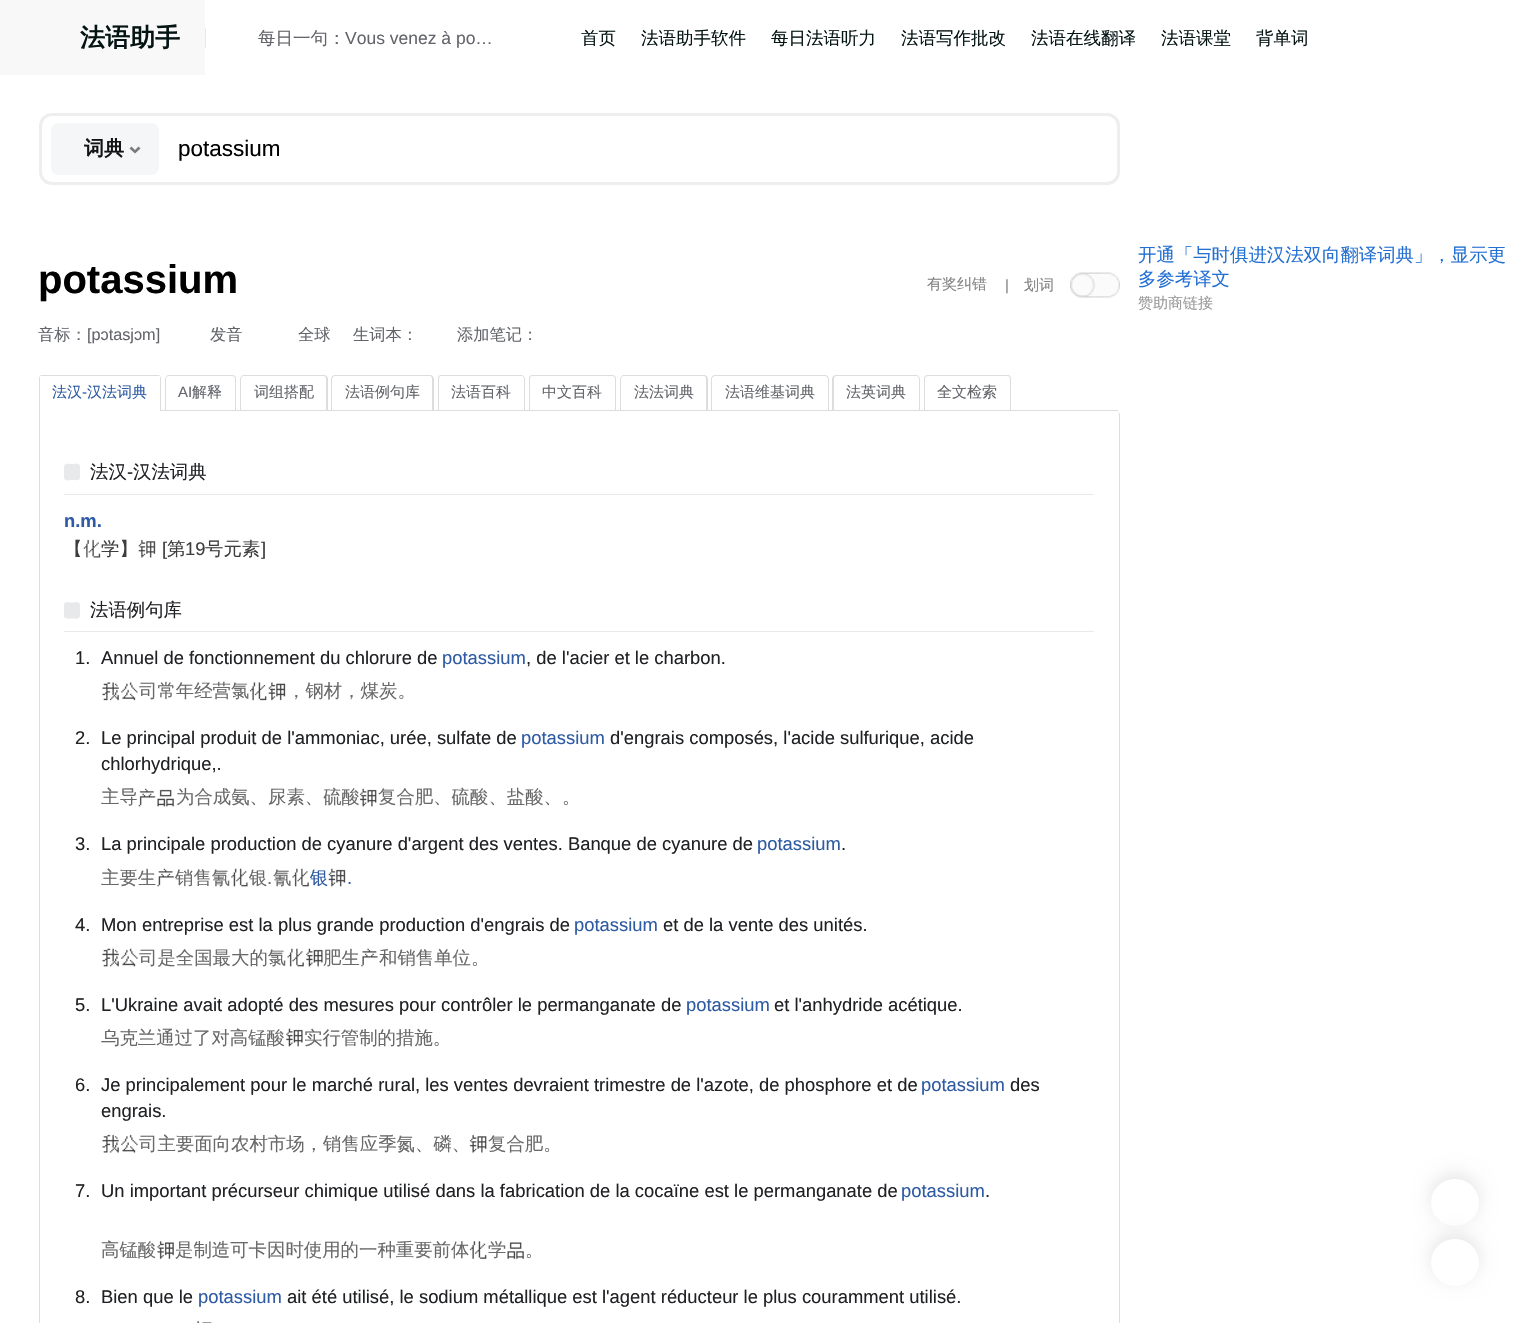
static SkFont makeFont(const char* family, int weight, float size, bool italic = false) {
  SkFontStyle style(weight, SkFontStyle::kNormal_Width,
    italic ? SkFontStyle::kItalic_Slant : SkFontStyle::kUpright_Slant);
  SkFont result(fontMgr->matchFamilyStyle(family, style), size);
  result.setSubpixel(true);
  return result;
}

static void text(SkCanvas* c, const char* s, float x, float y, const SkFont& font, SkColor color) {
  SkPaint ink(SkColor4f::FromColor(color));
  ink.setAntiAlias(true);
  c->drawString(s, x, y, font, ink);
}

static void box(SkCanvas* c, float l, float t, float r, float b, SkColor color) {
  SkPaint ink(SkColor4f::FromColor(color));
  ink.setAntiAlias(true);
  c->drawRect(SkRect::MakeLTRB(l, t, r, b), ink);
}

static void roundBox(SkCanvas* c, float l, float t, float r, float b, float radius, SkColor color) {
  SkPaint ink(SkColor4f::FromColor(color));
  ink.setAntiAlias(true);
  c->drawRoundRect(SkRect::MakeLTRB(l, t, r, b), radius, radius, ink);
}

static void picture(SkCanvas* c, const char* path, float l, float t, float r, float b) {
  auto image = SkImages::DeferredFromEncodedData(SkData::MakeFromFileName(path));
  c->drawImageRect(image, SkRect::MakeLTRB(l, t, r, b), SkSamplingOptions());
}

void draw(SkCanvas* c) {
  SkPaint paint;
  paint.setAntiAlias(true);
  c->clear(0xffffffff);
  box(c, 0, 0, 205, 75, 0xfff8f8f8);
  SkFont face1 = makeFont("WenQuanYi Zen Hei", 700, 25);
  text(c, "法语助手", 80, 46, face1, 0xff041413);
  box(c, 205, 28, 206, 48, 0xffe8e9eb);
  SkFont face2 = makeFont("WenQuanYi Zen Hei", 500, 17.5f);
  text(c, "每日一句：", 258, 44, face2, 0xff63656b);
  SkFont face3 = makeFont("Liberation Sans", 400, 17.5f);
  text(c, "Vous venez à po…", 345, 44, face3, 0xff63656b);
  text(c, "首页", 581, 44, face2, 0xff041413);
  text(c, "法语助手软件", 641, 44, face2, 0xff041413);
  text(c, "每日法语听力", 771, 44, face2, 0xff041413);
  text(c, "法语写作批改", 901, 44, face2, 0xff041413);
  text(c, "法语在线翻译", 1031, 44, face2, 0xff041413);
  text(c, "法语课堂", 1161, 44, face2, 0xff041413);
  text(c, "背单词", 1256, 44, face2, 0xff041413);
  paint.setStyle(SkPaint::kStroke_Style);
  paint.setStrokeWidth(3);
  paint.setColor(0xffeeeeee);
  c->drawRoundRect(SkRect::MakeLTRB(40.5f, 114.5f, 1118.5f, 183.5f), 11.5f, 11.5f, paint);
  roundBox(c, 51, 123, 159, 175, 8, 0xfff5f6f7);
  SkFont face4 = makeFont("WenQuanYi Zen Hei", 700, 20);
  text(c, "词典", 84, 155, face4, 0xff131415);
  paint.setStyle(SkPaint::kFill_Style);
  paint.setColor(0xff7b7b7c);
  c->drawPath(SkPathBuilder().moveTo(140.5f, 148.5f).lineTo(135, 153.5f).lineTo(135, 150).lineTo(138.5f, 146.5f).close().moveTo(135, 153.5f).lineTo(129.5f, 148.5f).lineTo(131.5f, 146.5f).lineTo(135, 150).close().detach(), paint);
  SkFont face5 = makeFont("Liberation Sans", 400, 22.5f);
  text(c, "potassium", 178, 156, face5, 0xff000000);
  SkFont face6 = makeFont("Liberation Sans", 700, 40);
  text(c, "potassium", 38, 293, face6, 0xff000000);
  SkFont face7 = makeFont("WenQuanYi Zen Hei", 500, 15);
  text(c, "有奖纠错", 927, 289, face7, 0xff838383);
  SkFont face8 = makeFont("Liberation Sans", 400, 15);
  text(c, "|", 1005, 290, face8, 0xff838383);
  text(c, "划词", 1024, 290, face7, 0xff838383);
  picture(c, "img_01.png", 1070, 272, 1120, 298);
  SkFont face9 = makeFont("WenQuanYi Zen Hei", 500, 16.25f);
  text(c, "音标：", 38, 340, face9, 0xff63656b);
  SkFont face10 = makeFont("Liberation Sans", 400, 16.25f);
  text(c, "[pɔtasjɔm]", 87, 340, face10, 0xff63656b);
  text(c, "发音", 210, 340, face9, 0xff63656b);
  text(c, "全球", 298, 340, face9, 0xff63656b);
  text(c, "生词本：", 353, 340, face9, 0xff63656b);
  text(c, "添加笔记：", 457, 340, face9, 0xff63656b);
  box(c, 161, 410, 1118, 411, 0xffdddddd);
  paint.setColor(0xffdddddd);
  c->drawPath(SkPathBuilder(SkPathFillType::kEvenOdd).moveTo(42, 375).lineTo(158, 375).cubicTo(160, 375, 161, 377, 161, 379).lineTo(161, 411).lineTo(39, 411).lineTo(39, 379).cubicTo(39, 377, 40, 375, 42, 375).close().moveTo(42, 376).lineTo(158, 376).cubicTo(159, 376, 160, 377, 160, 379).lineTo(160, 411).lineTo(40, 411).lineTo(40, 379).cubicTo(40, 377, 41, 376, 42, 376).close().detach(), paint);
  box(c, 40, 376, 160, 378, 0xffffffff);
  text(c, "法汉", 52, 397, face7, 0xff2e5ba3);
  text(c, "-", 82, 397, face8, 0xff2e5ba3);
  text(c, "汉法词典", 87, 397, face7, 0xff2e5ba3);
  c->drawPath(SkPathBuilder(SkPathFillType::kEvenOdd).moveTo(169, 375).lineTo(232, 375).cubicTo(235, 375, 236, 377, 236, 379).lineTo(236, 410).lineTo(165, 410).lineTo(165, 379).cubicTo(165, 377, 167, 375, 169, 375).close().moveTo(169, 376).lineTo(232, 376).cubicTo(234, 376, 235, 377, 235, 379).lineTo(235, 410).lineTo(166, 410).lineTo(166, 379).cubicTo(166, 377, 167, 376, 169, 376).close().detach(), paint);
  text(c, "AI", 178, 397, face8, 0xff63656b);
  text(c, "解释", 192, 397, face7, 0xff63656b);
  c->drawPath(SkPathBuilder(SkPathFillType::kEvenOdd).moveTo(244, 375).lineTo(324, 375).cubicTo(326, 375, 328, 377, 328, 379).lineTo(328, 410).lineTo(240, 410).lineTo(240, 379).cubicTo(240, 377, 242, 375, 244, 375).close().moveTo(244, 376).lineTo(324, 376).cubicTo(325, 376, 326, 377, 326, 379).lineTo(326, 410).lineTo(241, 410).lineTo(241, 379).cubicTo(241, 377, 242, 376, 244, 376).close().detach(), paint);
  text(c, "词组搭配", 254, 397, face7, 0xff63656b);
  c->drawPath(SkPathBuilder(SkPathFillType::kEvenOdd).moveTo(335, 375).lineTo(430, 375).cubicTo(432, 375, 434, 377, 434, 379).lineTo(434, 410).lineTo(331, 410).lineTo(331, 379).cubicTo(331, 377, 333, 375, 335, 375).close().moveTo(335, 376).lineTo(430, 376).cubicTo(431, 376, 432, 377, 432, 379).lineTo(432, 410).lineTo(332, 410).lineTo(332, 379).cubicTo(332, 377, 334, 376, 335, 376).close().detach(), paint);
  text(c, "法语例句库", 345, 397, face7, 0xff63656b);
  c->drawPath(SkPathBuilder(SkPathFillType::kEvenOdd).moveTo(441, 375).lineTo(521, 375).cubicTo(523, 375, 525, 377, 525, 379).lineTo(525, 410).lineTo(438, 410).lineTo(438, 379).cubicTo(438, 377, 439, 375, 441, 375).close().moveTo(441, 376).lineTo(521, 376).cubicTo(523, 376, 524, 377, 524, 379).lineTo(524, 410).lineTo(439, 410).lineTo(439, 379).cubicTo(439, 377, 440, 376, 441, 376).close().detach(), paint);
  text(c, "法语百科", 451, 397, face7, 0xff63656b);
  c->drawPath(SkPathBuilder(SkPathFillType::kEvenOdd).moveTo(532, 375).lineTo(612, 375).cubicTo(615, 375, 616, 377, 616, 379).lineTo(616, 410).lineTo(529, 410).lineTo(529, 379).cubicTo(529, 377, 530, 375, 532, 375).close().moveTo(532, 376).lineTo(612, 376).cubicTo(614, 376, 615, 377, 615, 379).lineTo(615, 410).lineTo(530, 410).lineTo(530, 379).cubicTo(530, 377, 531, 376, 532, 376).close().detach(), paint);
  text(c, "中文百科", 542, 397, face7, 0xff63656b);
  c->drawPath(SkPathBuilder(SkPathFillType::kEvenOdd).moveTo(624, 375).lineTo(704, 375).cubicTo(706, 375, 708, 377, 708, 379).lineTo(708, 410).lineTo(620, 410).lineTo(620, 379).cubicTo(620, 377, 622, 375, 624, 375).close().moveTo(624, 376).lineTo(704, 376).cubicTo(705, 376, 706, 377, 706, 379).lineTo(706, 410).lineTo(621, 410).lineTo(621, 379).cubicTo(621, 377, 622, 376, 624, 376).close().detach(), paint);
  text(c, "法法词典", 634, 397, face7, 0xff63656b);
  c->drawPath(SkPathBuilder(SkPathFillType::kEvenOdd).moveTo(715, 375).lineTo(825, 375).cubicTo(827, 375, 829, 377, 829, 379).lineTo(829, 410).lineTo(711, 410).lineTo(711, 379).cubicTo(711, 377, 713, 375, 715, 375).close().moveTo(715, 376).lineTo(825, 376).cubicTo(826, 376, 828, 377, 828, 379).lineTo(828, 410).lineTo(712, 410).lineTo(712, 379).cubicTo(712, 377, 714, 376, 715, 376).close().detach(), paint);
  text(c, "法语维基词典", 725, 397, face7, 0xff63656b);
  c->drawPath(SkPathBuilder(SkPathFillType::kEvenOdd).moveTo(836, 375).lineTo(916, 375).cubicTo(918, 375, 920, 377, 920, 379).lineTo(920, 410).lineTo(832, 410).lineTo(832, 379).cubicTo(832, 377, 834, 375, 836, 375).close().moveTo(836, 376).lineTo(916, 376).cubicTo(918, 376, 919, 377, 919, 379).lineTo(919, 410).lineTo(834, 410).lineTo(834, 379).cubicTo(834, 377, 835, 376, 836, 376).close().detach(), paint);
  text(c, "法英词典", 846, 397, face7, 0xff63656b);
  c->drawPath(SkPathBuilder(SkPathFillType::kEvenOdd).moveTo(928, 375).lineTo(1008, 375).cubicTo(1010, 375, 1011, 377, 1011, 379).lineTo(1011, 410).lineTo(924, 410).lineTo(924, 379).cubicTo(924, 377, 925, 375, 928, 375).close().moveTo(928, 376).lineTo(1008, 376).cubicTo(1009, 376, 1010, 377, 1010, 379).lineTo(1010, 410).lineTo(925, 410).lineTo(925, 379).cubicTo(925, 377, 926, 376, 928, 376).close().detach(), paint);
  text(c, "全文检索", 937, 397, face7, 0xff63656b);
  c->drawPath(SkPathBuilder(SkPathFillType::kEvenOdd).moveTo(39, 411).lineTo(1116, 411).cubicTo(1118, 411, 1120, 413, 1120, 415).lineTo(1120, 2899).cubicTo(1120, 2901, 1118, 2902, 1116, 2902).lineTo(42, 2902).cubicTo(40, 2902, 39, 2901, 39, 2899).close().moveTo(40, 411).lineTo(1116, 411).cubicTo(1118, 411, 1119, 413, 1119, 415).lineTo(1119, 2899).cubicTo(1119, 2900, 1118, 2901, 1116, 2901).lineTo(42, 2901).cubicTo(41, 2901, 40, 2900, 40, 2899).close().detach(), paint);
  box(c, 64, 494, 1094, 495, 0xffe8e9eb);
  paint.setColor(0xffe8e9eb);
  c->drawPath(SkPathBuilder().moveTo(80, 466.5f).lineTo(80, 476).cubicTo(80, 481.5f, 77, 480, 72, 480).cubicTo(70, 480, 64, 481.5f, 64, 477.5f).lineTo(64, 468.5f).cubicTo(64, 462.5f, 67, 464, 72, 464).cubicTo(74, 464, 80, 462.5f, 80, 466.5f).close().detach(), paint);
  SkFont face11 = makeFont("WenQuanYi Zen Hei", 500, 18.4f);
  text(c, "法汉", 90, 478, face11, 0xff202124);
  SkFont face12 = makeFont("Liberation Sans", 400, 18.4f);
  text(c, "-", 127, 478, face12, 0xff202124);
  text(c, "汉法词典", 133, 478, face11, 0xff202124);
  SkFont face13 = makeFont("Liberation Sans", 700, 18.4f);
  text(c, "n.m.", 64, 527, face13, 0xff2e5ba3);
  text(c, "【", 64, 555, face11, 0xff3e3e3e);
  picture(c, "img_02.png", 83, 539, 101, 558);
  text(c, "学】", 101, 555, face11, 0xff3e3e3e);
  picture(c, "img_03.png", 138, 539, 156, 558);
  text(c, "[", 162, 555, face12, 0xff3e3e3e);
  text(c, "第", 167, 555, face11, 0xff3e3e3e);
  text(c, "19", 185, 555, face12, 0xff3e3e3e);
  text(c, "号元素", 205, 555, face11, 0xff3e3e3e);
  text(c, "]", 261, 555, face12, 0xff3e3e3e);
  box(c, 64, 631, 1094, 632, 0xffe8e9eb);
  c->drawPath(SkPathBuilder().moveTo(80, 605).lineTo(80, 614).cubicTo(80, 620, 77, 618.5f, 72, 618.5f).cubicTo(70, 618.5f, 64, 619.5f, 64, 616).lineTo(64, 606.5f).cubicTo(64, 600.5f, 67, 602.5f, 72, 602.5f).cubicTo(74, 602.5f, 80, 601, 80, 605).close().detach(), paint);
  text(c, "法语例句库", 90, 616, face11, 0xff202124);
  text(c, "1.", 75, 664, face12, 0xff202124);
  text(c, "Annuel de fonctionnement du chlorure de", 101, 664, face12, 0xff202124);
  text(c, "potassium", 442, 664, face12, 0xff2e5ba3);
  text(c, ", de l'acier et le charbon.", 526, 664, face12, 0xff202124);
  picture(c, "img_04.png", 102, 682, 119, 701);
  picture(c, "img_05.png", 121, 682, 138, 701);
  text(c, "司常年经营氯", 139, 697, face11, 0xff696969);
  picture(c, "img_06.png", 248, 682, 267, 701);
  picture(c, "img_07.png", 268, 682, 286, 701);
  text(c, "，钢材，煤炭。", 287, 697, face11, 0xff696969);
  text(c, "2.", 75, 744, face12, 0xff202124);
  text(c, "Le principal produit de l'ammoniac, urée, sulfate de", 101, 744, face12, 0xff202124);
  text(c, "potassium", 521, 744, face12, 0xff2e5ba3);
  text(c, "d'engrais composés, l'acide sulfurique, acide", 610, 744, face12, 0xff202124);
  text(c, "chlorhydrique,.", 101, 770, face12, 0xff202124);
  text(c, "主导", 101, 803, face11, 0xff696969);
  picture(c, "img_08.png", 138, 788, 156, 807);
  picture(c, "img_09.png", 157, 789, 174, 807);
  text(c, "为合成氨、尿素、硫酸", 176, 803, face11, 0xff696969);
  picture(c, "img_10.png", 358, 788, 377, 807);
  text(c, "复合肥、硫酸、盐酸、。", 378, 803, face11, 0xff696969);
  text(c, "3.", 75, 850, face12, 0xff202124);
  text(c, "La principale production de cyanure d'argent des ventes. Banque de cyanure de", 101, 850, face12, 0xff202124);
  text(c, "potassium", 757, 850, face12, 0xff2e5ba3);
  text(c, ".", 841, 850, face12, 0xff202124);
  text(c, "主要生", 101, 884, face11, 0xff696969);
  picture(c, "img_11.png", 157, 868, 174, 887);
  text(c, "销售氰", 175, 884, face11, 0xff696969);
  picture(c, "img_12.png", 231, 868, 248, 887);
  text(c, "银", 249, 884, face11, 0xff696969);
  text(c, ".", 267, 884, face12, 0xff696969);
  text(c, "氰", 273, 884, face11, 0xff696969);
  picture(c, "img_13.png", 292, 868, 309, 887);
  text(c, "银", 310, 884, face11, 0xff2e5ba3);
  picture(c, "img_14.png", 327, 868, 346, 887);
  text(c, ".", 347, 884, face12, 0xff2e5ba3);
  text(c, "4.", 75, 931, face12, 0xff202124);
  text(c, "Mon entreprise est la plus grande production d'engrais de", 101, 931, face12, 0xff202124);
  text(c, "potassium", 574, 931, face12, 0xff2e5ba3);
  text(c, "et de la vente des unités.", 663, 931, face12, 0xff202124);
  picture(c, "img_15.png", 102, 948, 119, 967);
  picture(c, "img_16.png", 121, 948, 138, 967);
  text(c, "司是全国最大的氯", 139, 964, face11, 0xff696969);
  picture(c, "img_13.png", 287, 948, 304, 967);
  picture(c, "img_17.png", 306, 948, 323, 967);
  text(c, "肥生", 323, 964, face11, 0xff696969);
  picture(c, "img_18.png", 361, 948, 378, 967);
  text(c, "和销售单位。", 379, 964, face11, 0xff696969);
  text(c, "5.", 75, 1011, face12, 0xff202124);
  text(c, "L'Ukraine avait adopté des mesures pour contrôler le permanganate de", 101, 1011, face12, 0xff202124);
  text(c, "potassium", 686, 1011, face12, 0xff2e5ba3);
  text(c, "et l'anhydride acétique.", 774, 1011, face12, 0xff202124);
  text(c, "乌克兰通过了对高锰酸", 101, 1044, face11, 0xff696969);
  picture(c, "img_19.png", 286, 1028, 303, 1047);
  text(c, "实行管制的措施。", 304, 1044, face11, 0xff696969);
  text(c, "6.", 75, 1091, face12, 0xff202124);
  text(c, "Je principalement pour le marché rural, les ventes devraient trimestre de l'azote, de phosphore et de", 101, 1091, face12, 0xff202124);
  text(c, "potassium", 921, 1091, face12, 0xff2e5ba3);
  text(c, "des", 1010, 1091, face12, 0xff202124);
  text(c, "engrais.", 101, 1117, face12, 0xff202124);
  picture(c, "img_20.png", 102, 1134, 119, 1153);
  picture(c, "img_21.png", 121, 1134, 138, 1153);
  text(c, "司主要面向农村市场，销售应季氮、磷、", 139, 1150, face11, 0xff696969);
  picture(c, "img_22.png", 469, 1134, 487, 1153);
  text(c, "复合肥。", 488, 1150, face11, 0xff696969);
  text(c, "7.", 75, 1197, face12, 0xff202124);
  text(c, "Un important précurseur chimique utilisé dans la fabrication de la cocaïne est le permanganate de", 101, 1197, face12, 0xff202124);
  text(c, "potassium", 901, 1197, face12, 0xff2e5ba3);
  text(c, ".", 985, 1197, face12, 0xff202124);
  text(c, "高锰酸", 101, 1256, face11, 0xff696969);
  picture(c, "img_23.png", 157, 1241, 174, 1259);
  text(c, "是制造可卡因时使用的一种重要前体", 175, 1256, face11, 0xff696969);
  picture(c, "img_24.png", 468, 1241, 487, 1259);
  text(c, "学", 488, 1256, face11, 0xff696969);
  picture(c, "img_25.png", 507, 1242, 524, 1259);
  text(c, "。", 525, 1256, face11, 0xff696969);
  text(c, "8.", 75, 1303, face12, 0xff202124);
  text(c, "Bien que le", 101, 1303, face12, 0xff202124);
  text(c, "potassium", 198, 1303, face12, 0xff2e5ba3);
  text(c, "ait été utilisé, le sodium métallique est l'agent réducteur le plus couramment utilisé.", 287, 1303, face12, 0xff202124);
  picture(c, "img_26.png", 197, 1321, 212, 1323);
  text(c, "开通「与时俱进汉法双向翻译词典」，显示更", 1138, 261, face11, 0xff236fd4);
  text(c, "多参考译文", 1138, 285, face11, 0xff236fd4);
  text(c, "赞助商链接", 1138, 308, face7, 0xff999999);
  paint.setColor(0x1a000000);
  paint.setMaskFilter(SkMaskFilter::MakeBlur(kNormal_SkBlurStyle, 9));
  c->drawRoundRect(SkRect::MakeLTRB(1431, 1174, 1479, 1221), 23.5f, 23.5f, paint);
  paint.setMaskFilter(nullptr);
  roundBox(c, 1431, 1179, 1479, 1226, 23.5f, 0xffffffff);
  paint.setMaskFilter(SkMaskFilter::MakeBlur(kNormal_SkBlurStyle, 9));
  c->drawRoundRect(SkRect::MakeLTRB(1431, 1234, 1479, 1281), 23.5f, 23.5f, paint);
  paint.setMaskFilter(nullptr);
  roundBox(c, 1431, 1239, 1479, 1286, 23.5f, 0xffffffff);
}
